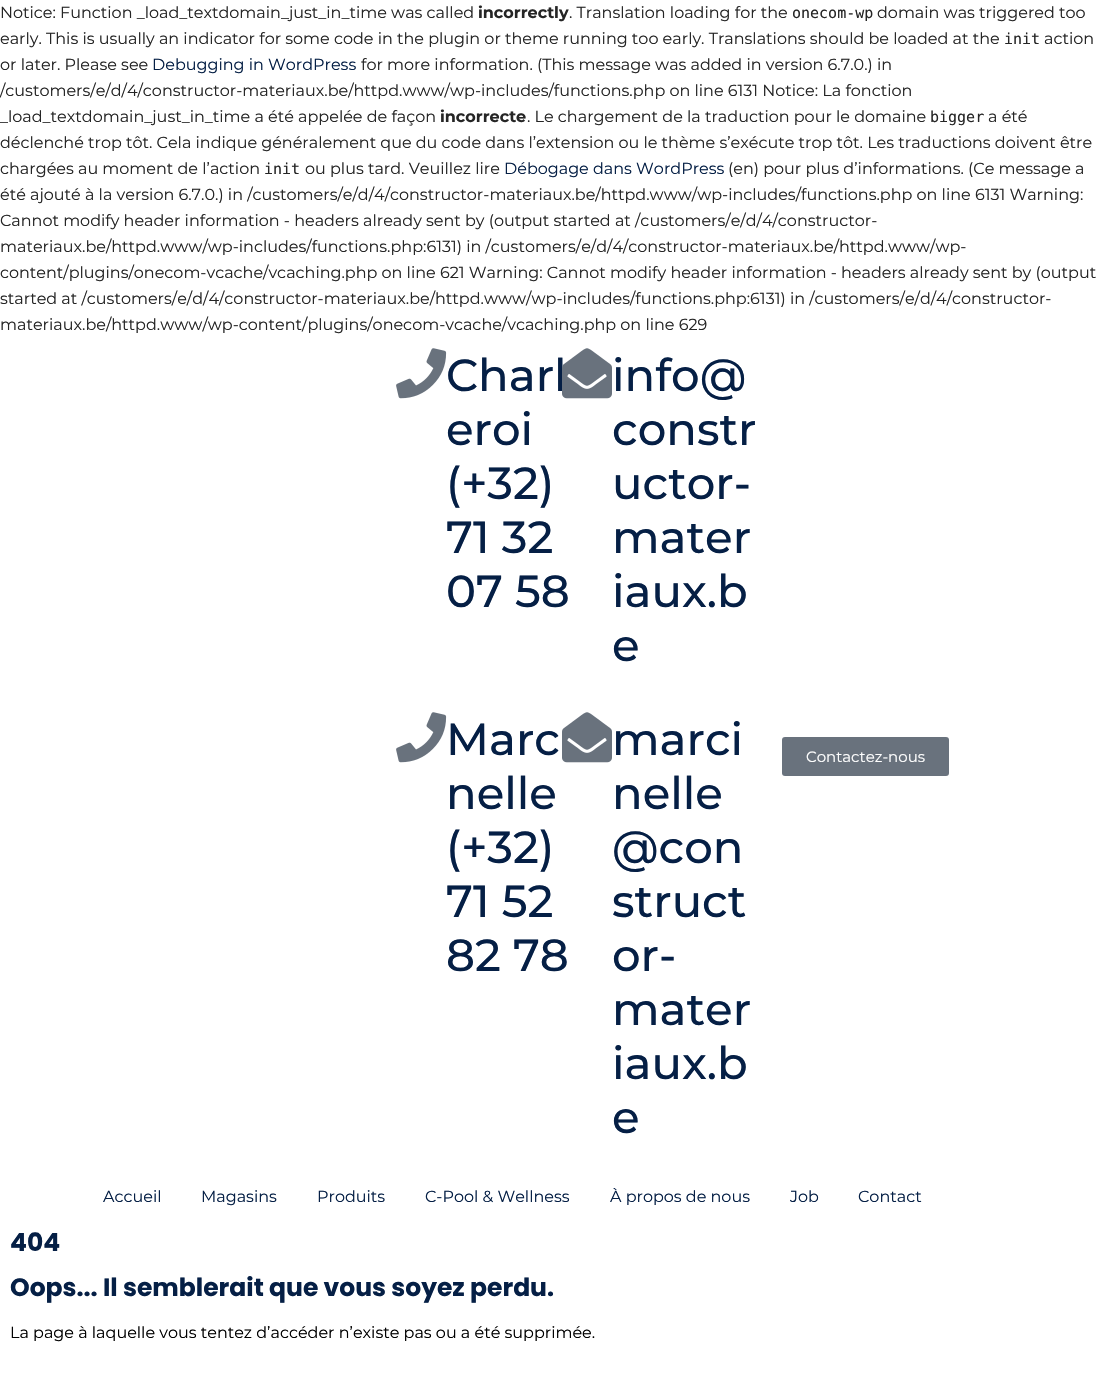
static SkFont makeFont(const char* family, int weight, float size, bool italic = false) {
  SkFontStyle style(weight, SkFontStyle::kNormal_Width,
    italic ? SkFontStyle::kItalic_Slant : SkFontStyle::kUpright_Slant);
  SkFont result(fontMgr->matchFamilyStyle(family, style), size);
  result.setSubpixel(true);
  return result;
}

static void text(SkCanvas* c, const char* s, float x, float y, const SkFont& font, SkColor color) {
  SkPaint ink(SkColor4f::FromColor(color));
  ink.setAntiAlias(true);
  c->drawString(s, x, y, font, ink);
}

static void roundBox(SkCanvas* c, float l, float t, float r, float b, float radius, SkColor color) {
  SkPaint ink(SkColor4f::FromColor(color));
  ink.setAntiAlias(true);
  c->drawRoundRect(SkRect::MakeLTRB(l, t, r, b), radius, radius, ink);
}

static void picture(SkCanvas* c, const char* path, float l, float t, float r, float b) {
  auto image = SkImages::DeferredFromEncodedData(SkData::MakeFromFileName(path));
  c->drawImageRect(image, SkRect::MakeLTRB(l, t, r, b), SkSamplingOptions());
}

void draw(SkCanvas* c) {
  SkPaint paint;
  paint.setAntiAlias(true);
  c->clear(0xffffffff);
  SkFont face1 = makeFont("Montserrat", 400, 16);
  text(c, "Notice: Function _load_textdomain_just_in_time was called", 0, 18, face1, 0xff252525);
  SkFont face2 = makeFont("Montserrat", 700, 16);
  text(c, "incorrectly", 478, 18, face2, 0xff252525);
  text(c, ". Translation loading for the", 569, 18, face1, 0xff252525);
  SkFont face3 = makeFont("DejaVu Sans Mono", 400, 15);
  text(c, "onecom-wp", 792, 18, face3, 0xff252525);
  text(c, "domain was triggered too", 877, 18, face1, 0xff252525);
  text(c, "early. This is usually an indicator for some code in the plugin or theme running too early. Translations should be loaded at the", 0, 44, face1, 0xff252525);
  text(c, "init", 1004, 44, face3, 0xff252525);
  text(c, "action", 1044, 44, face1, 0xff252525);
  text(c, "or later. Please see", 0, 70, face1, 0xff252525);
  text(c, "Debugging in WordPress", 152, 70, face1, 0xff051f45);
  text(c, "for more information. (This message was added in version 6.7.0.) in", 361, 70, face1, 0xff252525);
  text(c, "/customers/e/d/4/constructor-materiaux.be/httpd.www/wp-includes/functions.php on line 6131 Notice: La fonction", 0, 96, face1, 0xff252525);
  text(c, "_load_textdomain_just_in_time a été appelée de façon", 0, 122, face1, 0xff252525);
  text(c, "incorrecte", 440, 122, face2, 0xff252525);
  text(c, ". Le chargement de la traduction pour le domaine", 527, 122, face1, 0xff252525);
  text(c, "bigger", 930, 122, face3, 0xff252525);
  text(c, "a été", 988, 122, face1, 0xff252525);
  text(c, "déclenché trop tôt. Cela indique généralement que du code dans l’extension ou le thème s’exécute trop tôt. Les traductions doivent être", 0, 148, face1, 0xff252525);
  text(c, "chargées au moment de l’action", 0, 174, face1, 0xff252525);
  text(c, "init", 264, 174, face3, 0xff252525);
  text(c, "ou plus tard. Veuillez lire", 305, 174, face1, 0xff252525);
  text(c, "Débogage dans WordPress", 504, 174, face1, 0xff051f45);
  text(c, "(en) pour plus d’informations. (Ce message a", 728, 174, face1, 0xff252525);
  text(c, "été ajouté à la version 6.7.0.) in /customers/e/d/4/constructor-materiaux.be/httpd.www/wp-includes/functions.php on line 6131 Warning:", 0, 200, face1, 0xff252525);
  text(c, "Cannot modify header information - headers already sent by (output started at /customers/e/d/4/constructor-", 0, 226, face1, 0xff252525);
  text(c, "materiaux.be/httpd.www/wp-includes/functions.php:6131) in /customers/e/d/4/constructor-materiaux.be/httpd.www/wp-", 0, 252, face1, 0xff252525);
  text(c, "content/plugins/onecom-vcache/vcaching.php on line 621 Warning: Cannot modify header information - headers already sent by (output", 0, 278, face1, 0xff252525);
  text(c, "started at /customers/e/d/4/constructor-materiaux.be/httpd.www/wp-includes/functions.php:6131) in /customers/e/d/4/constructor-", 0, 304, face1, 0xff252525);
  text(c, "materiaux.be/httpd.www/wp-content/plugins/onecom-vcache/vcaching.php on line 629", 0, 330, face1, 0xff252525);
  picture(c, "img_01.png", 396, 348, 447, 399);
  SkFont face4 = makeFont("Montserrat", 500, 45);
  text(c, "Charl", 446, 391, face4, 0xff051f45);
  text(c, "eroi", 446, 445, face4, 0xff051f45);
  text(c, "(+32)", 446, 499, face4, 0xff051f45);
  text(c, "71 32", 446, 553, face4, 0xff051f45);
  text(c, "07 58", 446, 607, face4, 0xff051f45);
  picture(c, "img_02.png", 562, 348, 612, 399);
  text(c, "info@", 612, 391, face4, 0xff051f45);
  text(c, "constr", 612, 445, face4, 0xff051f45);
  text(c, "uctor-", 612, 499, face4, 0xff051f45);
  text(c, "mater", 612, 553, face4, 0xff051f45);
  text(c, "iaux.b", 612, 607, face4, 0xff051f45);
  text(c, "e", 612, 661, face4, 0xff051f45);
  picture(c, "img_01.png", 396, 712, 447, 763);
  text(c, "Marc", 446, 755, face4, 0xff051f45);
  text(c, "nelle", 446, 809, face4, 0xff051f45);
  text(c, "(+32)", 446, 863, face4, 0xff051f45);
  text(c, "71 52", 446, 917, face4, 0xff051f45);
  text(c, "82 78", 446, 971, face4, 0xff051f45);
  picture(c, "img_03.png", 562, 712, 612, 763);
  text(c, "marci", 612, 755, face4, 0xff051f45);
  text(c, "nelle", 612, 809, face4, 0xff051f45);
  text(c, "@con", 612, 863, face4, 0xff051f45);
  text(c, "struct", 612, 917, face4, 0xff051f45);
  text(c, "or-", 612, 971, face4, 0xff051f45);
  text(c, "mater", 612, 1025, face4, 0xff051f45);
  text(c, "iaux.b", 612, 1079, face4, 0xff051f45);
  text(c, "e", 612, 1133, face4, 0xff051f45);
  roundBox(c, 782, 737, 949, 776, 3, 0xff69727d);
  SkFont face5 = makeFont("Montserrat", 400, 15);
  text(c, "Contactez-nous", 806, 762, face5, 0xffffffff);
  text(c, "Accueil", 103, 1202, face1, 0xff051f45);
  text(c, "Magasins", 201, 1202, face1, 0xff051f45);
  text(c, "Produits", 317, 1202, face1, 0xff051f45);
  text(c, "C-Pool & Wellness", 425, 1202, face1, 0xff051f45);
  text(c, "À propos de nous", 610, 1202, face1, 0xff051f45);
  text(c, "Job", 790, 1202, face1, 0xff051f45);
  text(c, "Contact", 858, 1202, face1, 0xff051f45);
  SkFont face6 = makeFont("Poppins", 700, 25);
  text(c, "404", 10, 1251, face6, 0xff051f45);
  text(c, "Oops... Il semblerait que vous soyez perdu.", 10, 1296, face6, 0xff051f45);
  text(c, "La page à laquelle vous tentez d’accéder n’existe pas ou a été supprimée.", 10, 1338, face1, 0xff000000);
}
